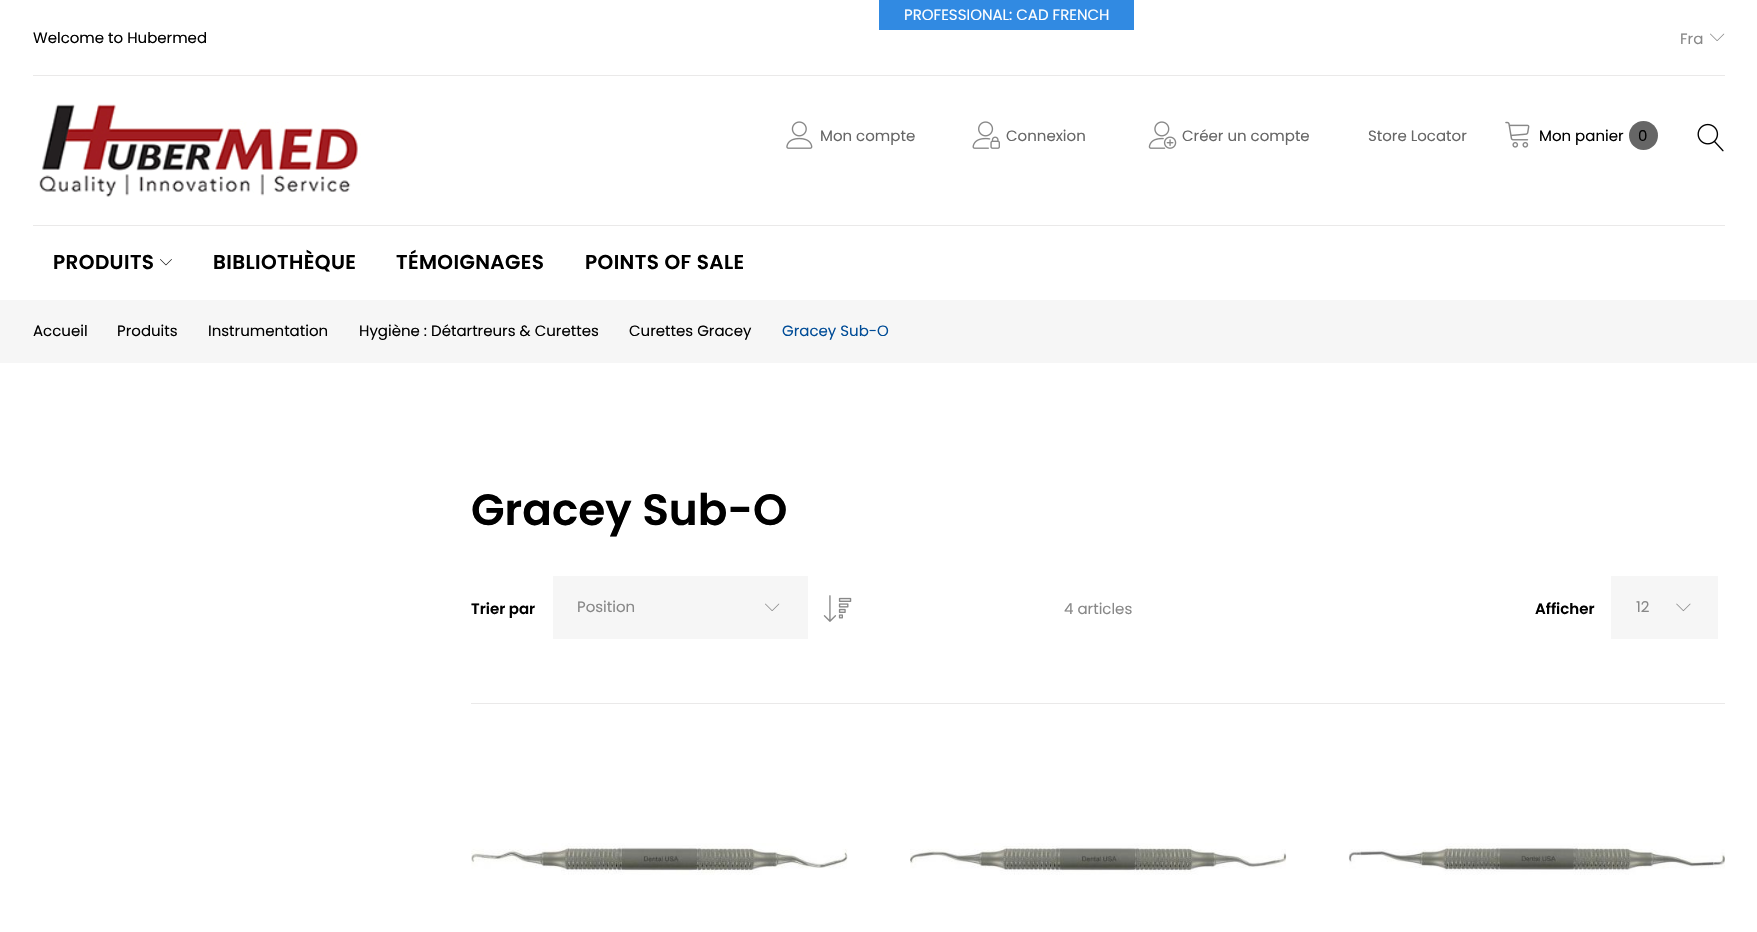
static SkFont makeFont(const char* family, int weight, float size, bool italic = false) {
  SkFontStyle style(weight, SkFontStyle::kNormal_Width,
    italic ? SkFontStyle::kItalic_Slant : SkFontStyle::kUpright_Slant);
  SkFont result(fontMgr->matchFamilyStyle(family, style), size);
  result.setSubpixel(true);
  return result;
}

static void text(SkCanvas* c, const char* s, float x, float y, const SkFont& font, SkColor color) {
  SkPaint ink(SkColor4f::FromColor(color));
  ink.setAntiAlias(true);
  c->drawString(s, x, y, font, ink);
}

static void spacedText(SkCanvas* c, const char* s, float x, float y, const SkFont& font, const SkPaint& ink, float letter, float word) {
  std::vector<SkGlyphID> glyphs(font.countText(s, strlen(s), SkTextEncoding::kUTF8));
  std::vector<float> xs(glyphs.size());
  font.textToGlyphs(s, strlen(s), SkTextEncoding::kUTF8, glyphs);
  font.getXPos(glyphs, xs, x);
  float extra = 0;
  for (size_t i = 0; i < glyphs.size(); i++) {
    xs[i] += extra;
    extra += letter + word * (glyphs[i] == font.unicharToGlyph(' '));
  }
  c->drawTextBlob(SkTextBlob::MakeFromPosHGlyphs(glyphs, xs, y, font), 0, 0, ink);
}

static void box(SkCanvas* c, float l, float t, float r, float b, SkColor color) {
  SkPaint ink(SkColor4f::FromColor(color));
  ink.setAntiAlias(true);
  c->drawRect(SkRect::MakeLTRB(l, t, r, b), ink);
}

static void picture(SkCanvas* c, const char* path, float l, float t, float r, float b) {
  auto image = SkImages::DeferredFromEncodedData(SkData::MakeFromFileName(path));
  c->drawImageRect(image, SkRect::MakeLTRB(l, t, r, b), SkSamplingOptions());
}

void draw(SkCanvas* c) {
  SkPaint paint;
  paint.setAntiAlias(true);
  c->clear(0xffffffff);
  box(c, 879, 0, 1134, 30, 0xff318ae2);
  SkFont face1 = makeFont("Poppins", 400, 15);
  text(c, "PROFESSIONAL: CAD FRENCH", 904, 20, face1, 0xffffffff);
  box(c, 33, 75, 1725, 76, 0xffeae9e9);
  text(c, "Welcome to Hubermed", 33, 43, face1, 0xff000000);
  text(c, "Fra", 1680, 44, face1, 0xff888888);
  picture(c, "img_01.png", 1710, 33, 1725, 41);
  box(c, 33, 225, 1725, 226, 0xffeae9e9);
  picture(c, "img_02.png", 39, 104, 361, 197);
  picture(c, "img_03.png", 786, 121, 813, 149);
  text(c, "Mon compte", 820, 141, face1, 0xff666666);
  picture(c, "img_04.png", 972, 121, 1000, 149);
  text(c, "Connexion", 1006, 141, face1, 0xff666666);
  picture(c, "img_05.png", 1148, 121, 1177, 149);
  text(c, "Créer un compte", 1182, 141, face1, 0xff666666);
  text(c, "Store Locator", 1368, 141, face1, 0xff666666);
  picture(c, "img_06.png", 1505, 121, 1530, 148);
  text(c, "Mon panier", 1539, 141, face1, 0xff000000);
  paint.setColor(0xff666666);
  c->drawCircle(1643.5f, 135.5f, 14.5f, paint);
  text(c, "0", 1638, 141, face1, 0xff000000);
  picture(c, "img_07.png", 1697, 123, 1724, 152);
  SkFont face2 = makeFont("Poppins", 600, 20);
  paint.setColor(0xff000000);
  spacedText(c, "PRODUITS", 53, 269, face2, paint, 0.4f, 0);
  picture(c, "img_08.png", 160, 259, 172, 266);
  spacedText(c, "BIBLIOTHÈQUE", 213, 269, face2, paint, 0.4f, 0);
  spacedText(c, "TÉMOIGNAGES", 396, 269, face2, paint, 0.4f, 0);
  spacedText(c, "POINTS OF SALE", 585, 269, face2, paint, 0.4f, 0);
  box(c, 0, 300, 1757, 363, 0xfff6f6f6);
  text(c, "Accueil", 33, 336, face1, 0xff000000);
  text(c, "Produits", 117, 336, face1, 0xff000000);
  text(c, "Instrumentation", 208, 336, face1, 0xff000000);
  text(c, "Hygiène : Détartreurs & Curettes", 359, 336, face1, 0xff000000);
  text(c, "Curettes Gracey", 629, 336, face1, 0xff000000);
  text(c, "Gracey Sub-O", 782, 336, face1, 0xff004c97);
  SkFont face3 = makeFont("Poppins", 600, 43.75f);
  text(c, "Gracey Sub-O", 471, 525, face3, 0xff000000);
  box(c, 471, 703, 1725, 704, 0xffeae9e9);
  SkFont face4 = makeFont("Poppins", 600, 15);
  text(c, "Trier par", 471, 614, face4, 0xff000000);
  box(c, 553, 576, 808, 639, 0xfff6f6f6);
  text(c, "Position", 577, 612, face1, 0xff888888);
  picture(c, "img_09.png", 765, 603, 780, 611);
  picture(c, "img_10.png", 823, 595, 852, 622);
  text(c, "4 articles", 1064, 614, face1, 0xff888888);
  text(c, "Afficher", 1535, 614, face4, 0xff000000);
  box(c, 1611, 576, 1718, 639, 0xfff6f6f6);
  text(c, "12", 1636, 612, face1, 0xff888888);
  picture(c, "img_11.png", 1676, 603, 1691, 612);
  picture(c, "img_12.png", 471, 843, 848, 875);
  picture(c, "img_13.png", 910, 843, 1287, 875);
  picture(c, "img_14.png", 1348, 843, 1725, 875);
}
